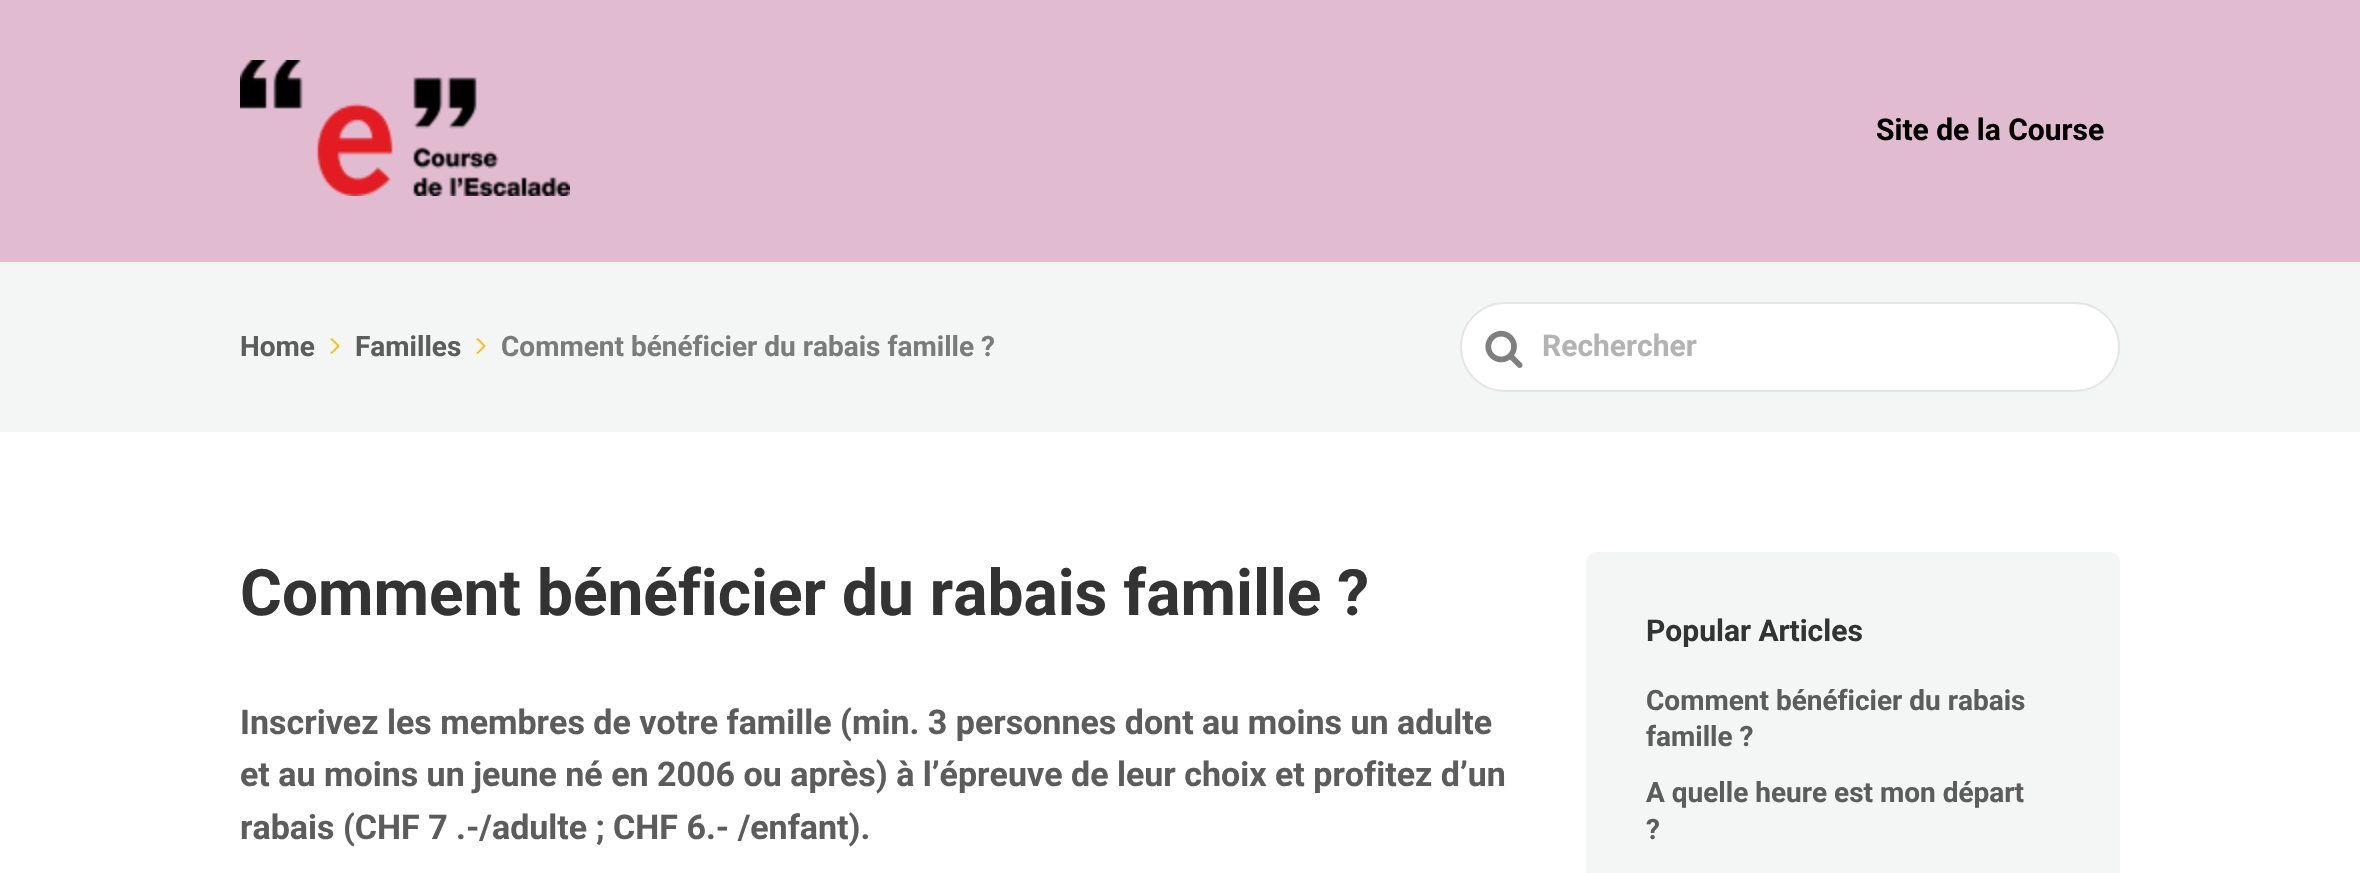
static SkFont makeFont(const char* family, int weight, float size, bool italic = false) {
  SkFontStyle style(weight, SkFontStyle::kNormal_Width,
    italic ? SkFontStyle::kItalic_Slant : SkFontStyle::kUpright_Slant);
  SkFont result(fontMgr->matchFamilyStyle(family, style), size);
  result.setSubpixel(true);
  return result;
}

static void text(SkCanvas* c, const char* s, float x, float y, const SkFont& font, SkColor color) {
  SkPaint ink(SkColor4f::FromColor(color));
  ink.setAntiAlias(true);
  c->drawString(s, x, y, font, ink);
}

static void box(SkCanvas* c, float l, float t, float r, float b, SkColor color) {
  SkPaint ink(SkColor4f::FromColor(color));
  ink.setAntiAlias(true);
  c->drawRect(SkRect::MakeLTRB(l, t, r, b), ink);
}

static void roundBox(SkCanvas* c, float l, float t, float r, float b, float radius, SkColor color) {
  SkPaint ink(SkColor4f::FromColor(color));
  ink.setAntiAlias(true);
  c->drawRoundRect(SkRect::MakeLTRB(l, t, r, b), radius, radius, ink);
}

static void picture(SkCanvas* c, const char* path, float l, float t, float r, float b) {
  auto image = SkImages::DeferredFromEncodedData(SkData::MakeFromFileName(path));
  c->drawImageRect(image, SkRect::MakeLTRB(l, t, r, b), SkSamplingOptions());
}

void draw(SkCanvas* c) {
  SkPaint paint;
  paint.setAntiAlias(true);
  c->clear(0xffffffff);
  box(c, 0, 0, 2360, 262, 0xffe1bbd0);
  picture(c, "img_01.png", 240, 60, 570, 196);
  SkFont face1 = makeFont("Roboto", 700, 30);
  text(c, "Site de la Course", 1876, 140, face1, 0xff000000);
  box(c, 0, 262, 2360, 432, 0xfff4f5f5);
  SkFont face2 = makeFont("Roboto", 700, 28);
  text(c, "Home", 240, 356, face2, 0xff5c5c5c);
  picture(c, "img_02.png", 330, 338, 340, 354);
  text(c, "Familles", 355, 356, face2, 0xff5c5c5c);
  picture(c, "img_02.png", 476, 338, 486, 354);
  text(c, "Comment bénéficier du rabais famille ?", 501, 356, face2, 0xff7a7b7b);
  roundBox(c, 1460, 302, 2120, 392, 45, 0xffffffff);
  paint.setStyle(SkPaint::kStroke_Style);
  paint.setStrokeWidth(2);
  paint.setColor(0x80cccccc);
  c->drawRoundRect(SkRect::MakeLTRB(1461, 303, 2119, 391), 44, 44, paint);
  picture(c, "img_03.png", 1485, 330, 1523, 368);
  text(c, "Rechercher", 1542, 356, face1, 0xffb3b3b3);
  SkFont face3 = makeFont("Roboto", 700, 64);
  text(c, "Comment bénéficier du rabais famille ?", 240, 615, face3, 0xff333333);
  SkFont face4 = makeFont("Roboto", 700, 34);
  text(c, "Inscrivez les membres de votre famille (min. 3 personnes dont au moins un adulte", 240, 734, face4, 0xff5c5c5c);
  text(c, "et au moins un jeune né en 2006 ou après) à l’épreuve de leur choix et profitez d’un", 240, 786, face4, 0xff5c5c5c);
  text(c, "rabais (CHF 7 .-/adulte ; CHF 6.- /enfant).", 240, 839, face4, 0xff5c5c5c);
  roundBox(c, 1586, 552, 2120, 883, 10, 0xfff4f5f5);
  text(c, "Popular Articles", 1646, 641, face1, 0xff333333);
  text(c, "Comment bénéficier du rabais", 1646, 710, face2, 0xff5c5c5c);
  text(c, "famille ?", 1646, 746, face2, 0xff5c5c5c);
  text(c, "A quelle heure est mon départ", 1646, 802, face2, 0xff5c5c5c);
  text(c, "?", 1646, 839, face2, 0xff5c5c5c);
}
